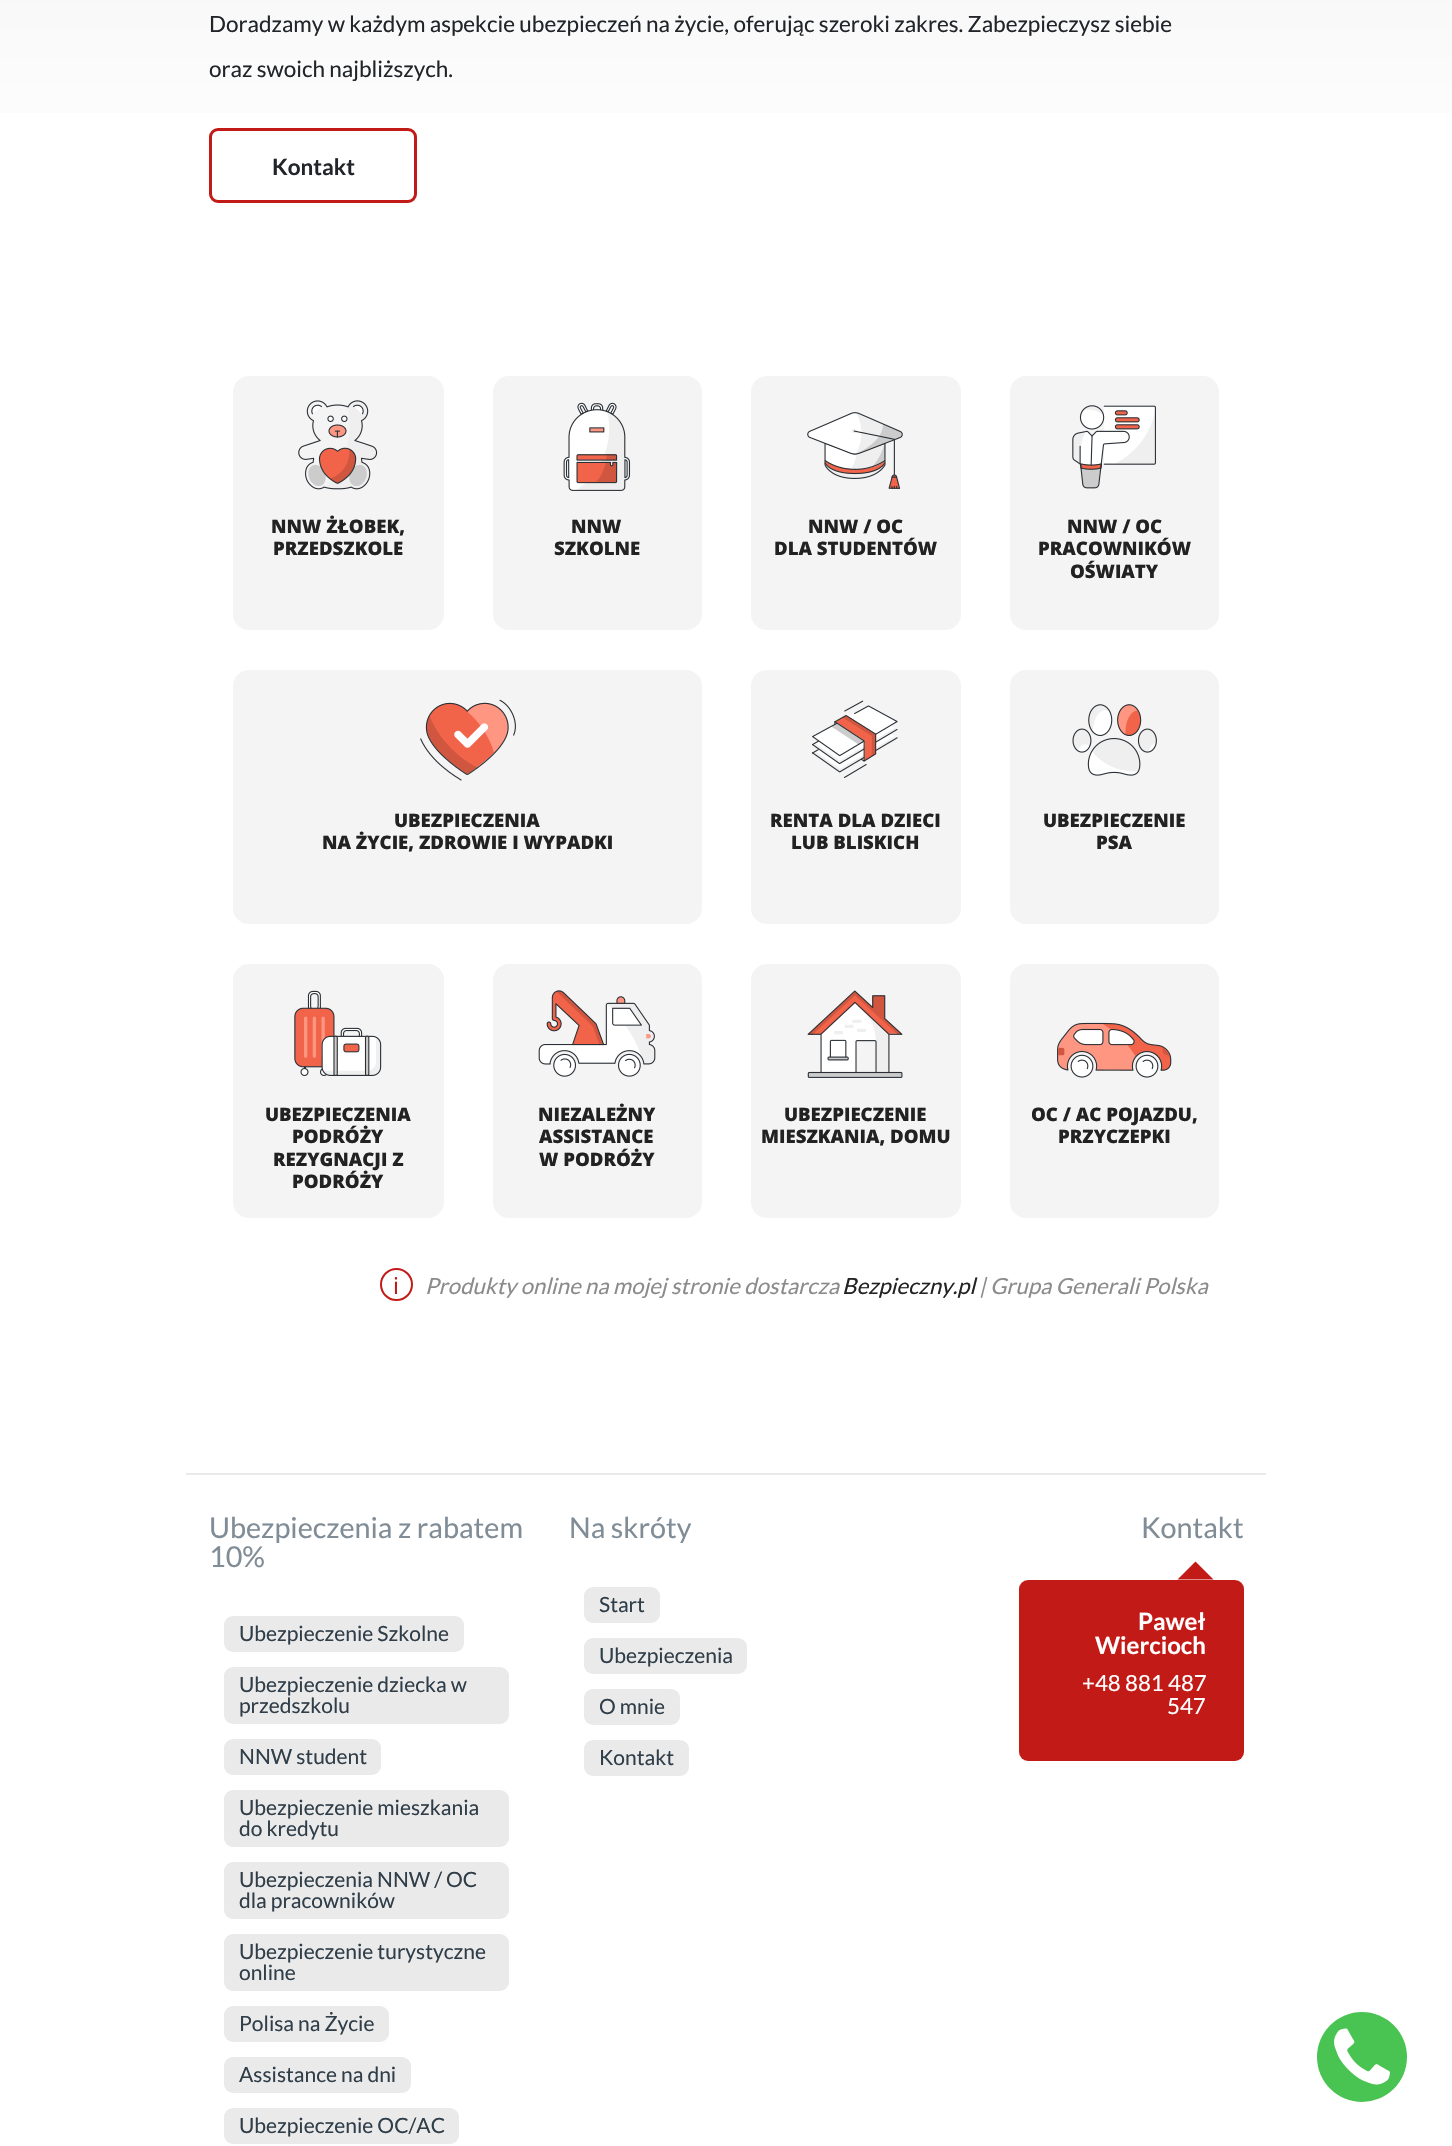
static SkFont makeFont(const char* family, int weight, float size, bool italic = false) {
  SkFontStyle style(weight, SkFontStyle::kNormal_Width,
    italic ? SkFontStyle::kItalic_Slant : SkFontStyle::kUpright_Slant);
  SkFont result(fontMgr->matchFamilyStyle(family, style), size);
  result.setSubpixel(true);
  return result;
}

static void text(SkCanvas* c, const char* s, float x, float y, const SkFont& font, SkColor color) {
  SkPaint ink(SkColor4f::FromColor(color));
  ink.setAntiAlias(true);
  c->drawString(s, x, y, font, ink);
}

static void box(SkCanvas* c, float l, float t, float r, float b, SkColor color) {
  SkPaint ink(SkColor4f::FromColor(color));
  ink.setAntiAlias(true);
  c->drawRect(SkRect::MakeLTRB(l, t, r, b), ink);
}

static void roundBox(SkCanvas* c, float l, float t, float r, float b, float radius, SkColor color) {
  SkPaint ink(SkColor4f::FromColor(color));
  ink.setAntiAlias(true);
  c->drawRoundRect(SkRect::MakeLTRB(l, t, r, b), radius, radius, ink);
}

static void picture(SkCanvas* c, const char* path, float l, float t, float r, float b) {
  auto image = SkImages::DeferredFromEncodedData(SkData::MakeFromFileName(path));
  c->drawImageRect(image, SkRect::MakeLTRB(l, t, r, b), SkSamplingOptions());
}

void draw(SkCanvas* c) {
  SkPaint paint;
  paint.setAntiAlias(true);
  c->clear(0xffffffff);
  {
    const SkColor colors[] = {0xfff7f7f7, 0xffffffff};
    const float stops[] = {0.3f, 0.7f};
    const SkPoint ends[] = {{726, -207}, {726, 350}};
    paint.setShader(SkGradientShader::MakeLinear(ends, colors, stops, 2, SkTileMode::kClamp));
    paint.setAlpha(255);
  }
  c->drawRect(SkRect::MakeLTRB(0, 0, 1452, 113), paint);
  SkFont face1 = makeFont("Lato", 400, 22.5f);
  text(c, "Doradzamy w każdym aspekcie ubezpieczeń na życie, oferując szeroki zakres. Zabezpieczysz siebie", 209, 32, face1, 0xff212529);
  text(c, "oraz swoich najbliższych.", 209, 77, face1, 0xff212529);
  paint.setStyle(SkPaint::kStroke_Style);
  paint.setStrokeWidth(3);
  paint.setShader(nullptr);
  paint.setColor(0xffc21b17);
  c->drawRoundRect(SkRect::MakeLTRB(210.5f, 129.5f, 415.5f, 201.5f), 7.5f, 7.5f, paint);
  SkFont face2 = makeFont("Lato", 700, 22.5f);
  text(c, "Kontakt", 272, 175, face2, 0xff212529);
  paint.setStyle(SkPaint::kFill_Style);
  paint.setColor(0xfff4f4f4);
  c->drawRoundRect(SkRect::MakeLTRB(232, 375, 445, 631), 17, 17, paint);
  paint.setStyle(SkPaint::kStroke_Style);
  paint.setStrokeWidth(2);
  paint.setColor(0xffffffff);
  c->drawRoundRect(SkRect::MakeLTRB(232, 375, 445, 631), 17, 17, paint);
  picture(c, "img_01.png", 298, 400, 378, 490);
  SkFont face3 = makeFont("Open Sans", 800, 18.6f);
  text(c, "NNW ŻŁOBEK,", 271, 533, face3, 0xff222222);
  text(c, "PRZEDSZKOLE", 273, 555, face3, 0xff222222);
  paint.setStyle(SkPaint::kFill_Style);
  paint.setColor(0xfff4f4f4);
  c->drawRoundRect(SkRect::MakeLTRB(492, 375, 703, 631), 17, 17, paint);
  paint.setStyle(SkPaint::kStroke_Style);
  paint.setColor(0xffffffff);
  c->drawRoundRect(SkRect::MakeLTRB(492, 375, 703, 631), 17, 17, paint);
  picture(c, "img_02.png", 563, 402, 631, 491);
  text(c, "NNW", 571, 533, face3, 0xff222222);
  text(c, "SZKOLNE", 554, 555, face3, 0xff222222);
  paint.setStyle(SkPaint::kFill_Style);
  paint.setColor(0xfff4f4f4);
  c->drawRoundRect(SkRect::MakeLTRB(750, 375, 962, 631), 17, 17, paint);
  paint.setStyle(SkPaint::kStroke_Style);
  paint.setColor(0xffffffff);
  c->drawRoundRect(SkRect::MakeLTRB(750, 375, 962, 631), 17, 17, paint);
  picture(c, "img_03.png", 807, 412, 903, 489);
  text(c, "NNW / OC", 808, 533, face3, 0xff222222);
  text(c, "DLA STUDENTÓW", 774, 555, face3, 0xff222222);
  paint.setStyle(SkPaint::kFill_Style);
  paint.setColor(0xfff4f4f4);
  c->drawRoundRect(SkRect::MakeLTRB(1009, 375, 1220, 631), 17, 17, paint);
  paint.setStyle(SkPaint::kStroke_Style);
  paint.setColor(0xffffffff);
  c->drawRoundRect(SkRect::MakeLTRB(1009, 375, 1220, 631), 17, 17, paint);
  picture(c, "img_04.png", 1072, 405, 1156, 489);
  text(c, "NNW / OC", 1067, 533, face3, 0xff222222);
  text(c, "PRACOWNIKÓW", 1038, 555, face3, 0xff222222);
  text(c, "OŚWIATY", 1070, 578, face3, 0xff222222);
  paint.setStyle(SkPaint::kFill_Style);
  paint.setColor(0xfff4f4f4);
  c->drawRoundRect(SkRect::MakeLTRB(232, 669, 703, 925), 17, 17, paint);
  paint.setStyle(SkPaint::kStroke_Style);
  paint.setColor(0xffffffff);
  c->drawRoundRect(SkRect::MakeLTRB(232, 669, 703, 925), 17, 17, paint);
  picture(c, "img_05.png", 420, 699, 516, 781);
  text(c, "UBEZPIECZENIA", 394, 827, face3, 0xff222222);
  text(c, "NA ŻYCIE, ZDROWIE I WYPADKI", 322, 849, face3, 0xff222222);
  paint.setStyle(SkPaint::kFill_Style);
  paint.setColor(0xfff4f4f4);
  c->drawRoundRect(SkRect::MakeLTRB(750, 669, 962, 925), 17, 17, paint);
  paint.setStyle(SkPaint::kStroke_Style);
  paint.setColor(0xffffffff);
  c->drawRoundRect(SkRect::MakeLTRB(750, 669, 962, 925), 17, 17, paint);
  picture(c, "img_06.png", 811, 700, 898, 778);
  text(c, "RENTA DLA DZIECI", 770, 827, face3, 0xff222222);
  text(c, "LUB BLISKICH", 791, 849, face3, 0xff222222);
  paint.setStyle(SkPaint::kFill_Style);
  paint.setColor(0xfff4f4f4);
  c->drawRoundRect(SkRect::MakeLTRB(1009, 669, 1220, 925), 17, 17, paint);
  paint.setStyle(SkPaint::kStroke_Style);
  paint.setColor(0xffffffff);
  c->drawRoundRect(SkRect::MakeLTRB(1009, 669, 1220, 925), 17, 17, paint);
  picture(c, "img_07.png", 1072, 704, 1157, 776);
  text(c, "UBEZPIECZENIE", 1043, 827, face3, 0xff222222);
  text(c, "PSA", 1096, 849, face3, 0xff222222);
  paint.setStyle(SkPaint::kFill_Style);
  paint.setColor(0xfff4f4f4);
  c->drawRoundRect(SkRect::MakeLTRB(232, 963, 445, 1219), 17, 17, paint);
  paint.setStyle(SkPaint::kStroke_Style);
  paint.setColor(0xffffffff);
  c->drawRoundRect(SkRect::MakeLTRB(232, 963, 445, 1219), 17, 17, paint);
  picture(c, "img_08.png", 294, 990, 382, 1076);
  text(c, "UBEZPIECZENIA", 265, 1121, face3, 0xff222222);
  text(c, "PODRÓŻY", 292, 1143, face3, 0xff222222);
  text(c, "REZYGNACJI Z", 273, 1166, face3, 0xff222222);
  text(c, "PODRÓŻY", 292, 1188, face3, 0xff222222);
  paint.setStyle(SkPaint::kFill_Style);
  paint.setColor(0xfff4f4f4);
  c->drawRoundRect(SkRect::MakeLTRB(492, 963, 703, 1219), 17, 17, paint);
  paint.setStyle(SkPaint::kStroke_Style);
  paint.setColor(0xffffffff);
  c->drawRoundRect(SkRect::MakeLTRB(492, 963, 703, 1219), 17, 17, paint);
  picture(c, "img_09.png", 538, 990, 656, 1077);
  text(c, "NIEZALEŻNY", 538, 1121, face3, 0xff222222);
  text(c, "ASSISTANCE", 539, 1143, face3, 0xff222222);
  text(c, "W PODRÓŻY", 539, 1166, face3, 0xff222222);
  paint.setStyle(SkPaint::kFill_Style);
  paint.setColor(0xfff4f4f4);
  c->drawRoundRect(SkRect::MakeLTRB(750, 963, 962, 1219), 17, 17, paint);
  paint.setStyle(SkPaint::kStroke_Style);
  paint.setColor(0xffffffff);
  c->drawRoundRect(SkRect::MakeLTRB(750, 963, 962, 1219), 17, 17, paint);
  picture(c, "img_10.png", 807, 990, 903, 1078);
  text(c, "UBEZPIECZENIE", 784, 1121, face3, 0xff222222);
  text(c, "MIESZKANIA, DOMU", 761, 1143, face3, 0xff222222);
  paint.setStyle(SkPaint::kFill_Style);
  paint.setColor(0xfff4f4f4);
  c->drawRoundRect(SkRect::MakeLTRB(1009, 963, 1220, 1219), 17, 17, paint);
  paint.setStyle(SkPaint::kStroke_Style);
  paint.setColor(0xffffffff);
  c->drawRoundRect(SkRect::MakeLTRB(1009, 963, 1220, 1219), 17, 17, paint);
  picture(c, "img_11.png", 1057, 1022, 1172, 1078);
  text(c, "OC / AC POJAZDU,", 1031, 1121, face3, 0xff222222);
  text(c, "PRZYCZEPKI", 1058, 1143, face3, 0xff222222);
  paint.setColor(0xffc21b17);
  c->drawCircle(396.5f, 1284.5f, 15.5f, paint);
  SkFont face4 = makeFont("Noto Sans", 400, 23);
  text(c, "ℹ", 393, 1294, face4, 0xffc21b17);
  SkFont face5 = makeFont("Lato", 400, 22.25f, true);
  text(c, "Produkty online na mojej stronie dostarcza", 425, 1294, face5, 0xff8b8b8b);
  text(c, "Bezpieczny.pl", 842, 1294, face5, 0xff222222);
  text(c, "| Grupa Generali Polska", 979, 1294, face5, 0xff8b8b8b);
  box(c, 186, 1473, 1266, 1475, 0xffeaeaea);
  SkFont face6 = makeFont("Lato", 400, 28.75f);
  text(c, "Ubezpieczenia z rabatem", 209, 1538, face6, 0xff808c96);
  text(c, "10%", 209, 1567, face6, 0xff808c96);
  roundBox(c, 224, 1616, 464, 1652, 9, 0xffeaeaea);
  SkFont face7 = makeFont("Lato", 400, 21);
  text(c, "Ubezpieczenie Szkolne", 239, 1641, face7, 0xff303e49);
  roundBox(c, 224, 1667, 509, 1724, 9, 0xffeaeaea);
  text(c, "Ubezpieczenie dziecka w", 239, 1692, face7, 0xff303e49);
  text(c, "przedszkolu", 239, 1713, face7, 0xff303e49);
  roundBox(c, 224, 1739, 381, 1775, 9, 0xffeaeaea);
  text(c, "NNW student", 239, 1764, face7, 0xff303e49);
  roundBox(c, 224, 1790, 509, 1847, 9, 0xffeaeaea);
  text(c, "Ubezpieczenie mieszkania", 239, 1815, face7, 0xff303e49);
  text(c, "do kredytu", 239, 1836, face7, 0xff303e49);
  roundBox(c, 224, 1862, 509, 1919, 9, 0xffeaeaea);
  text(c, "Ubezpieczenia NNW / OC", 239, 1887, face7, 0xff303e49);
  text(c, "dla pracowników", 239, 1908, face7, 0xff303e49);
  roundBox(c, 224, 1934, 509, 1991, 9, 0xffeaeaea);
  text(c, "Ubezpieczenie turystyczne", 239, 1959, face7, 0xff303e49);
  text(c, "online", 239, 1980, face7, 0xff303e49);
  roundBox(c, 224, 2006, 389, 2042, 9, 0xffeaeaea);
  text(c, "Polisa na Życie", 239, 2031, face7, 0xff303e49);
  roundBox(c, 224, 2057, 411, 2093, 9, 0xffeaeaea);
  text(c, "Assistance na dni", 239, 2082, face7, 0xff303e49);
  roundBox(c, 224, 2108, 459, 2144, 9, 0xffeaeaea);
  text(c, "Ubezpieczenie OC/AC", 239, 2133, face7, 0xff303e49);
  text(c, "Na skróty", 569, 1538, face6, 0xff808c96);
  roundBox(c, 584, 1587, 660, 1623, 9, 0xffeaeaea);
  text(c, "Start", 599, 1612, face7, 0xff303e49);
  roundBox(c, 584, 1638, 747, 1674, 9, 0xffeaeaea);
  text(c, "Ubezpieczenia", 599, 1663, face7, 0xff303e49);
  roundBox(c, 584, 1689, 680, 1725, 9, 0xffeaeaea);
  text(c, "O mnie", 599, 1714, face7, 0xff303e49);
  roundBox(c, 584, 1740, 689, 1776, 9, 0xffeaeaea);
  text(c, "Kontakt", 599, 1765, face7, 0xff303e49);
  text(c, "Kontakt", 1141, 1538, face6, 0xff808c96);
  roundBox(c, 1019, 1580, 1244, 1761, 9, 0xffc21b17);
  paint.setStyle(SkPaint::kFill_Style);
  c->drawPath(SkPathBuilder().moveTo(1213.5f, 1579.5f).lineTo(1177.5f, 1579.5f).lineTo(1195.5f, 1561.5f).close().detach(), paint);
  SkFont face8 = makeFont("Lato", 700, 24);
  text(c, "Paweł", 1138, 1630, face8, 0xffffffff);
  text(c, "Wiercioch", 1095, 1654, face8, 0xffffffff);
  SkFont face9 = makeFont("Lato", 400, 22.25f);
  text(c, "+48 881 487", 1082, 1691, face9, 0xffffffff);
  text(c, "547", 1167, 1714, face9, 0xffffffff);
  paint.setColor(0xff49c351);
  c->drawCircle(1362, 2057, 45, paint);
  picture(c, "img_12.png", 1334, 2028, 1390, 2085);
}
